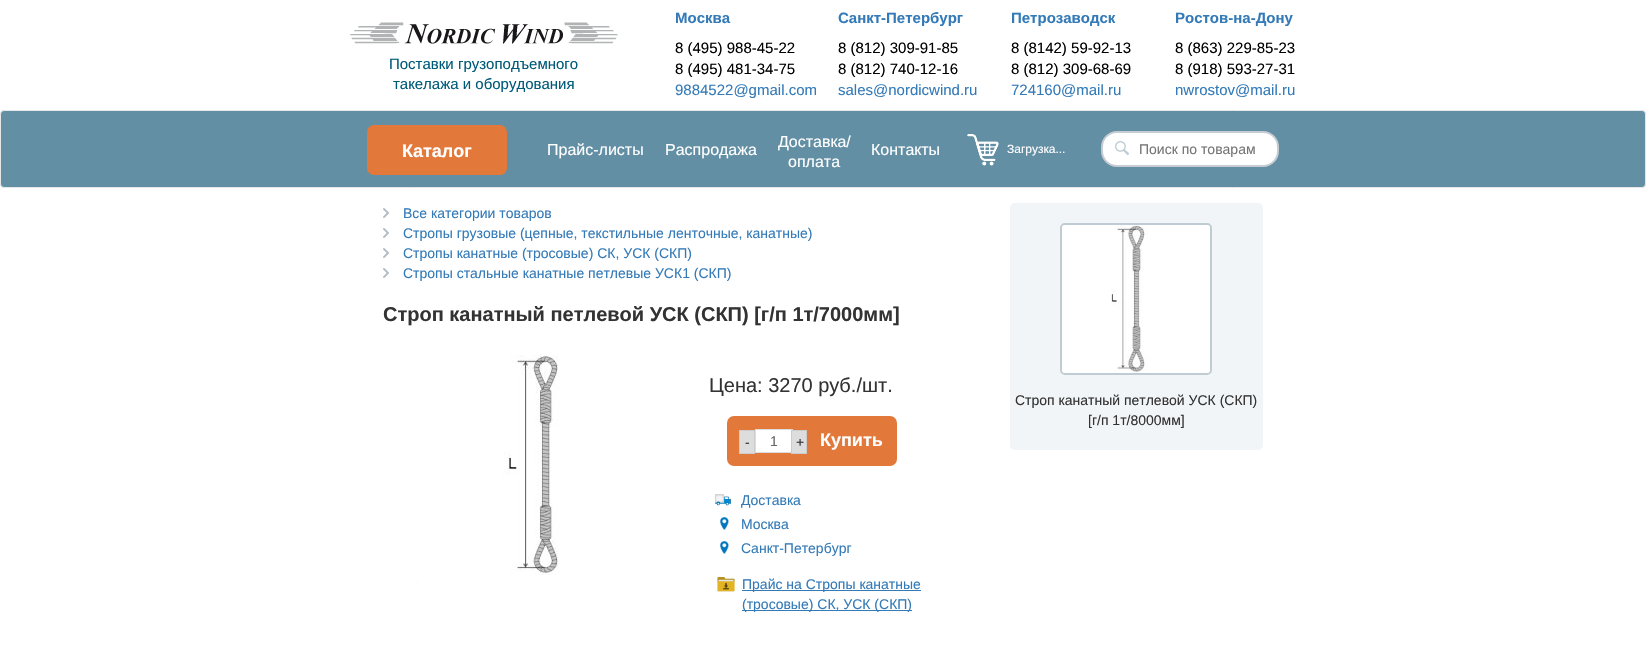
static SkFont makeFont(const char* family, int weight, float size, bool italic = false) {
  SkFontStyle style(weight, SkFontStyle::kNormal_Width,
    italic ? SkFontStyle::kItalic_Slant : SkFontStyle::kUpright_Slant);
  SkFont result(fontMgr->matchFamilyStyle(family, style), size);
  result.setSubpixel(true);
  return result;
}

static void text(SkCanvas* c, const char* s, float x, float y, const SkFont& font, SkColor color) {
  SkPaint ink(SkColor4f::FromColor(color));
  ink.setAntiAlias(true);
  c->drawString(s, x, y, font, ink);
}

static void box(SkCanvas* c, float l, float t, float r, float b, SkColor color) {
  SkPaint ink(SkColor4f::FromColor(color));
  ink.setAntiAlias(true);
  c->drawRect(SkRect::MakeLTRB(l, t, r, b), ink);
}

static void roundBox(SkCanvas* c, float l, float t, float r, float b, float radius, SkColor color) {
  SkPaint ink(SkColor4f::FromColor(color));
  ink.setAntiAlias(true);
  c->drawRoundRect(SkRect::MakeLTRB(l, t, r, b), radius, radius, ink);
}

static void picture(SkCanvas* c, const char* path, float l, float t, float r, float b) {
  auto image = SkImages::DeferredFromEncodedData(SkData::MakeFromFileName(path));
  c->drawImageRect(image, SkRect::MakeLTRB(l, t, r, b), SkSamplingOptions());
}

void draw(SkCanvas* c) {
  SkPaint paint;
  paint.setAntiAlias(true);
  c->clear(0xffffffff);
  picture(c, "img_01.png", 350, 22, 618, 44);
  SkFont face1 = makeFont("Liberation Sans", 400, 15);
  text(c, "Поставки грузоподъемного", 389, 69, face1, 0xff005b79);
  text(c, "такелажа и оборудования", 393, 89, face1, 0xff005b79);
  SkFont face2 = makeFont("Liberation Sans", 700, 15);
  text(c, "Москва", 675, 23, face2, 0xff337ab7);
  text(c, "8 (495) 988-45-22", 675, 53, face1, 0xff000000);
  text(c, "8 (495) 481-34-75", 675, 74, face1, 0xff000000);
  text(c, "9884522@gmail.com", 675, 95, face1, 0xff337ab7);
  text(c, "Санкт-Петербург", 838, 23, face2, 0xff337ab7);
  text(c, "8 (812) 309-91-85", 838, 53, face1, 0xff000000);
  text(c, "8 (812) 740-12-16", 838, 74, face1, 0xff000000);
  text(c, "sales@nordicwind.ru", 838, 95, face1, 0xff337ab7);
  text(c, "Петрозаводск", 1011, 23, face2, 0xff337ab7);
  text(c, "8 (8142) 59-92-13", 1011, 53, face1, 0xff000000);
  text(c, "8 (812) 309-68-69", 1011, 74, face1, 0xff000000);
  text(c, "724160@mail.ru", 1011, 95, face1, 0xff337ab7);
  text(c, "Ростов-на-Дону", 1175, 23, face2, 0xff337ab7);
  text(c, "8 (863) 229-85-23", 1175, 53, face1, 0xff000000);
  text(c, "8 (918) 593-27-31", 1175, 74, face1, 0xff000000);
  text(c, "nwrostov@mail.ru", 1175, 95, face1, 0xff337ab7);
  paint.setColor(0xff628fa4);
  c->drawRoundRect(SkRect::MakeLTRB(0.5f, 110.5f, 1645.5f, 187.5f), 3.5f, 3.5f, paint);
  paint.setStyle(SkPaint::kStroke_Style);
  paint.setStrokeWidth(1);
  paint.setColor(0xffe7e7e7);
  c->drawRoundRect(SkRect::MakeLTRB(0.5f, 110.5f, 1645.5f, 187.5f), 3.5f, 3.5f, paint);
  roundBox(c, 367, 125, 507, 175, 7, 0xffe2783a);
  SkFont face3 = makeFont("Liberation Sans", 700, 18);
  text(c, "Каталог", 402, 157, face3, 0xffffffff);
  SkFont face4 = makeFont("Liberation Sans", 400, 16);
  text(c, "Прайс-листы", 547, 155, face4, 0xffffffff);
  text(c, "Распродажа", 665, 155, face4, 0xffffffff);
  text(c, "Доставка/", 778, 147, face4, 0xffffffff);
  text(c, "оплата", 788, 167, face4, 0xffffffff);
  text(c, "Контакты", 871, 155, face4, 0xffffffff);
  picture(c, "img_02.png", 967, 134, 999, 166);
  SkFont face5 = makeFont("Liberation Sans", 400, 12);
  text(c, "Загрузка...", 1007, 153, face5, 0xffffffff);
  paint.setStyle(SkPaint::kFill_Style);
  paint.setColor(0xffffffff);
  c->drawRoundRect(SkRect::MakeLTRB(1102, 132, 1278, 166), 15, 15, paint);
  paint.setStyle(SkPaint::kStroke_Style);
  paint.setStrokeWidth(2);
  paint.setColor(0xffc6ccd2);
  c->drawRoundRect(SkRect::MakeLTRB(1102, 132, 1278, 166), 15, 15, paint);
  picture(c, "img_03.png", 1115, 141, 1129, 155);
  SkFont face6 = makeFont("Liberation Sans", 400, 14);
  text(c, "Поиск по товарам", 1139, 154, face6, 0xff757575);
  picture(c, "img_04.png", 383, 208, 389, 218);
  text(c, "Все категории товаров", 403, 218, face6, 0xff337ab7);
  picture(c, "img_04.png", 383, 228, 389, 238);
  text(c, "Стропы грузовые (цепные, текстильные ленточные, канатные)", 403, 238, face6, 0xff337ab7);
  picture(c, "img_04.png", 383, 248, 389, 258);
  text(c, "Стропы канатные (тросовые) СК, УСК (СКП)", 403, 258, face6, 0xff337ab7);
  picture(c, "img_04.png", 383, 268, 389, 278);
  text(c, "Стропы стальные канатные петлевые УСК1 (СКП)", 403, 278, face6, 0xff337ab7);
  SkFont face7 = makeFont("Liberation Sans", 700, 20);
  text(c, "Строп канатный петлевой УСК (СКП) [г/п 1т/7000мм]", 383, 321, face7, 0xff333333);
  picture(c, "img_05.png", 503, 355, 559, 575);
  box(c, 417, 583, 418, 584, 0xfff5f5f5);
  SkFont face8 = makeFont("Liberation Sans", 400, 20);
  text(c, "Цена: 3270 руб./шт.", 709, 392, face8, 0xff333333);
  roundBox(c, 727, 416, 897, 466, 7, 0xffe2783a);
  paint.setStyle(SkPaint::kFill_Style);
  paint.setColor(0xffdddddd);
  c->drawRect(SkRect::MakeLTRB(739.5f, 430.5f, 754.5f, 453.5f), paint);
  paint.setStyle(SkPaint::kStroke_Style);
  paint.setStrokeWidth(1);
  paint.setColor(0xffcccccc);
  c->drawRect(SkRect::MakeLTRB(739.5f, 430.5f, 754.5f, 453.5f), paint);
  text(c, "-", 745, 447, face6, 0xff333333);
  box(c, 756, 430, 791, 452, 0xffffffff);
  paint.setColor(0xffdddddd);
  c->drawRect(SkRect::MakeLTRB(755.5f, 429.5f, 792.5f, 452.5f), paint);
  text(c, "1", 770, 446, face6, 0xff666666);
  box(c, 793, 431, 806, 453, 0xffdddddd);
  paint.setColor(0xffcccccc);
  c->drawRect(SkRect::MakeLTRB(791.5f, 430.5f, 806.5f, 453.5f), paint);
  text(c, "+", 796, 447, face6, 0xff333333);
  text(c, "Купить", 820, 446, face3, 0xffffffff);
  picture(c, "img_06.png", 715, 494, 731, 506);
  text(c, "Доставка", 741, 505, face6, 0xff337ab7);
  picture(c, "img_07.png", 720, 517, 729, 530);
  text(c, "Москва", 741, 529, face6, 0xff337ab7);
  picture(c, "img_07.png", 720, 541, 729, 554);
  text(c, "Санкт-Петербург", 741, 553, face6, 0xff337ab7);
  picture(c, "img_08.png", 717, 577, 735, 592);
  box(c, 742, 590, 921, 591, 0xff337ab7);
  text(c, "Прайс на Стропы канатные", 742, 589, face6, 0xff337ab7);
  box(c, 742, 610, 912, 611, 0xff337ab7);
  text(c, "(тросовые) СК, УСК (СКП)", 742, 609, face6, 0xff337ab7);
  roundBox(c, 1010, 203, 1263, 450, 5, 0xfff2f5f8);
  paint.setStrokeWidth(2);
  paint.setColor(0xffc0ccd3);
  c->drawRoundRect(SkRect::MakeLTRB(1061, 224, 1211, 374), 4, 4, paint);
  picture(c, "img_09.png", 1062, 225, 1210, 373);
  text(c, "Строп канатный петлевой УСК (СКП)", 1015, 405, face6, 0xff333333);
  text(c, "[г/п 1т/8000мм]", 1088, 425, face6, 0xff333333);
}
